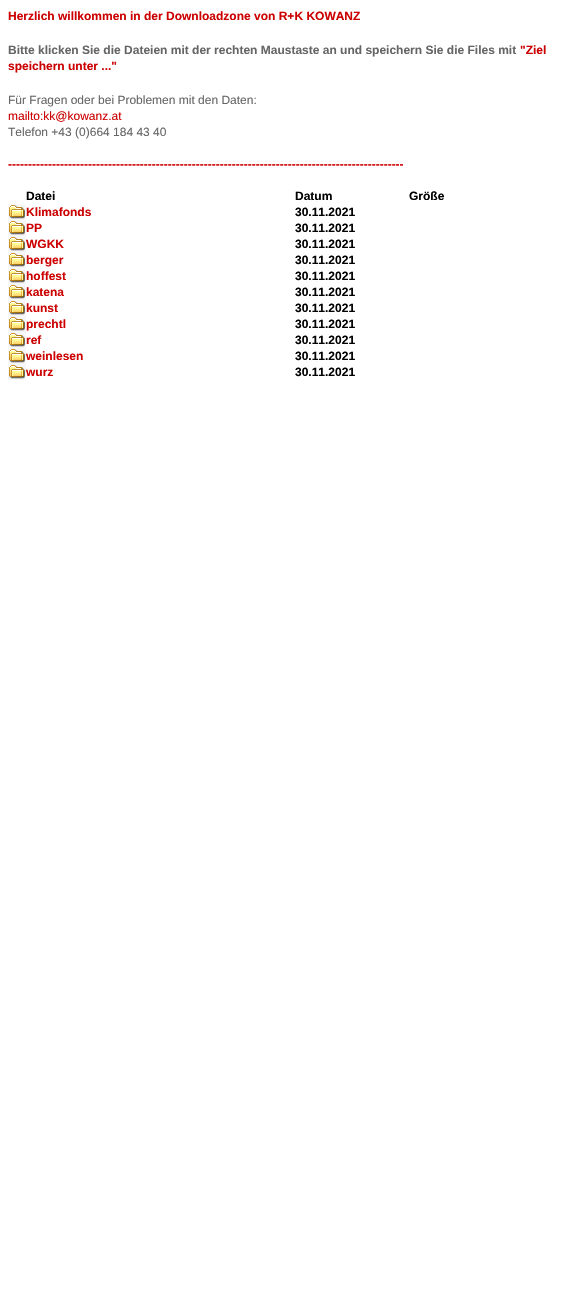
static SkFont makeFont(const char* family, int weight, float size, bool italic = false) {
  SkFontStyle style(weight, SkFontStyle::kNormal_Width,
    italic ? SkFontStyle::kItalic_Slant : SkFontStyle::kUpright_Slant);
  SkFont result(fontMgr->matchFamilyStyle(family, style), size);
  result.setSubpixel(true);
  return result;
}

static void text(SkCanvas* c, const char* s, float x, float y, const SkFont& font, SkColor color) {
  SkPaint ink(SkColor4f::FromColor(color));
  ink.setAntiAlias(true);
  c->drawString(s, x, y, font, ink);
}

static void picture(SkCanvas* c, const char* path, float l, float t, float r, float b) {
  auto image = SkImages::DeferredFromEncodedData(SkData::MakeFromFileName(path));
  c->drawImageRect(image, SkRect::MakeLTRB(l, t, r, b), SkSamplingOptions());
}

void draw(SkCanvas* c) {
  SkPaint paint;
  paint.setAntiAlias(true);
  c->clear(0xffffffff);
  SkFont face1 = makeFont("Liberation Sans", 700, 12);
  text(c, "Herzlich willkommen in der Downloadzone von R+K KOWANZ", 8, 20, face1, 0xffcc0000);
  text(c, "Bitte klicken Sie die Dateien mit der rechten Maustaste an und speichern Sie die Files mit", 8, 54, face1, 0xff666666);
  text(c, "\"Ziel", 520, 54, face1, 0xffcc0000);
  text(c, "speichern unter ...\"", 8, 70, face1, 0xffcc0000);
  SkFont face2 = makeFont("Liberation Sans", 400, 12);
  text(c, "Für Fragen oder bei Problemen mit den Daten:", 8, 104, face2, 0xff666666);
  text(c, "mailto:kk@kowanz.at", 8, 120, face2, 0xffcc0000);
  text(c, "Telefon +43 (0)664 184 43 40", 8, 136, face2, 0xff666666);
  text(c, "---------------------------------------------------------------------------------------------------", 8, 168, face1, 0xffcc0000);
  text(c, "Datei", 26, 200, face1, 0xff000000);
  text(c, "Datum", 295, 200, face1, 0xff000000);
  text(c, "Größe", 409, 200, face1, 0xff000000);
  picture(c, "img_01.png", 8, 204, 26, 220);
  text(c, "Klimafonds", 26, 216, face1, 0xffcc0000);
  text(c, "30.11.2021", 295, 216, face1, 0xff000000);
  picture(c, "img_01.png", 8, 220, 26, 236);
  text(c, "PP", 26, 232, face1, 0xffcc0000);
  text(c, "30.11.2021", 295, 232, face1, 0xff000000);
  picture(c, "img_01.png", 8, 236, 26, 252);
  text(c, "WGKK", 26, 248, face1, 0xffcc0000);
  text(c, "30.11.2021", 295, 248, face1, 0xff000000);
  picture(c, "img_01.png", 8, 252, 26, 268);
  text(c, "berger", 26, 264, face1, 0xffcc0000);
  text(c, "30.11.2021", 295, 264, face1, 0xff000000);
  picture(c, "img_01.png", 8, 268, 26, 284);
  text(c, "hoffest", 26, 280, face1, 0xffcc0000);
  text(c, "30.11.2021", 295, 280, face1, 0xff000000);
  picture(c, "img_01.png", 8, 284, 26, 300);
  text(c, "katena", 26, 296, face1, 0xffcc0000);
  text(c, "30.11.2021", 295, 296, face1, 0xff000000);
  picture(c, "img_01.png", 8, 300, 26, 316);
  text(c, "kunst", 26, 312, face1, 0xffcc0000);
  text(c, "30.11.2021", 295, 312, face1, 0xff000000);
  picture(c, "img_01.png", 8, 316, 26, 332);
  text(c, "prechtl", 26, 328, face1, 0xffcc0000);
  text(c, "30.11.2021", 295, 328, face1, 0xff000000);
  picture(c, "img_01.png", 8, 332, 26, 348);
  text(c, "ref", 26, 344, face1, 0xffcc0000);
  text(c, "30.11.2021", 295, 344, face1, 0xff000000);
  picture(c, "img_01.png", 8, 348, 26, 364);
  text(c, "weinlesen", 26, 360, face1, 0xffcc0000);
  text(c, "30.11.2021", 295, 360, face1, 0xff000000);
  picture(c, "img_01.png", 8, 364, 26, 380);
  text(c, "wurz", 26, 376, face1, 0xffcc0000);
  text(c, "30.11.2021", 295, 376, face1, 0xff000000);
}
